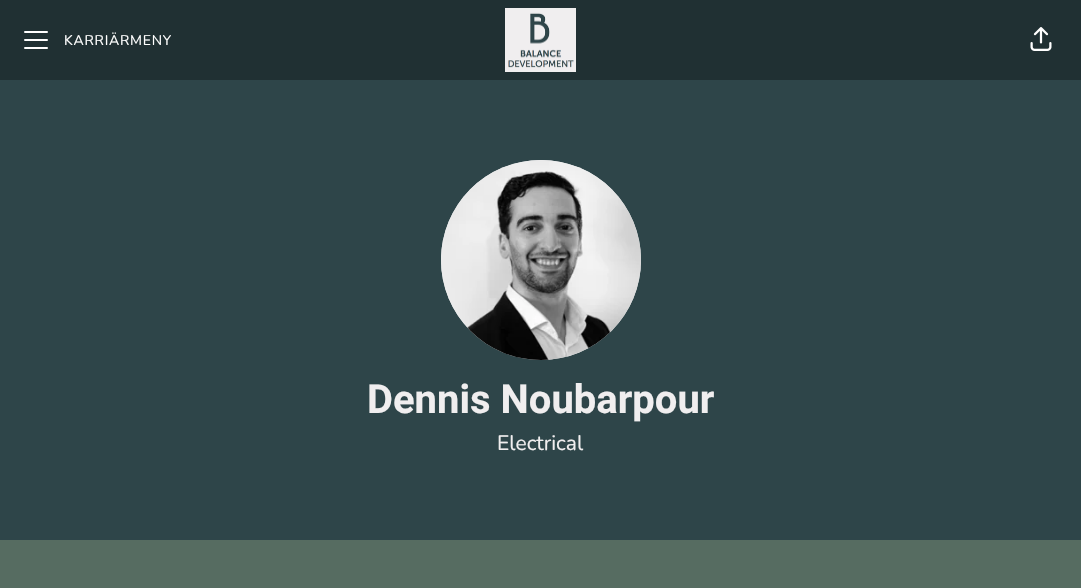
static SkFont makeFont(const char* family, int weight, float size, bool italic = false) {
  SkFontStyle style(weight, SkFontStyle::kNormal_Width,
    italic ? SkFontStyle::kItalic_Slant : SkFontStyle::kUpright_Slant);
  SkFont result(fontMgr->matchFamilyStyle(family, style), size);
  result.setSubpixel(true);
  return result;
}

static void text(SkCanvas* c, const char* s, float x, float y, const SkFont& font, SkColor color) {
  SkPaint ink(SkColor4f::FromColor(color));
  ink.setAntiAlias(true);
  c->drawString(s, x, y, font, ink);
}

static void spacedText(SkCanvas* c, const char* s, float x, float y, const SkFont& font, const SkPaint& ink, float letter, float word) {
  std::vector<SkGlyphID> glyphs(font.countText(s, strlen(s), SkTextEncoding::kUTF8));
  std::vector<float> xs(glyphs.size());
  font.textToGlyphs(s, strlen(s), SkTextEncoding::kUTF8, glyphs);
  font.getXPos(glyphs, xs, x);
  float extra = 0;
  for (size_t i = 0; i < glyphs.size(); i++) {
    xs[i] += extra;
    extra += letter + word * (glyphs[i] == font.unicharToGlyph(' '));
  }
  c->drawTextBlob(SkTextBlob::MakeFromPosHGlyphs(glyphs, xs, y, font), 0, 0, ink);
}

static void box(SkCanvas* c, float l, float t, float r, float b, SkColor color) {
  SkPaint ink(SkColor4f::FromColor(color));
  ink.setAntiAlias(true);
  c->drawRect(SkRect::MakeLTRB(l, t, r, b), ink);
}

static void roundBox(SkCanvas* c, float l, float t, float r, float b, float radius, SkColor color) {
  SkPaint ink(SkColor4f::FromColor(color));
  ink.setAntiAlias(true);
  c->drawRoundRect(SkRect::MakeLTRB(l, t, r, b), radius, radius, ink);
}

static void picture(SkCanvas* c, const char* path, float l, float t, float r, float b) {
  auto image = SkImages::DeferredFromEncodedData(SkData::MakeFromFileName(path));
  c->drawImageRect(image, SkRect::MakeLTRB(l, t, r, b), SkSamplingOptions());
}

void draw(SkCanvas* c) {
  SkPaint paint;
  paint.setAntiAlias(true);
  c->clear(0xff2e4549);
  box(c, 0, 0, 1081, 80, 0xff203033);
  roundBox(c, 24, 31, 48, 33, 1, 0xffffffff);
  roundBox(c, 24, 39, 48, 41, 1, 0xffffffff);
  roundBox(c, 24, 47, 48, 49, 1, 0xffffffff);
  SkFont face1 = makeFont("Nunito", 200, 14);
  paint.setColor(0xffffffff);
  spacedText(c, "KARRIÄRMENY", 64, 45, face1, paint, 0.75f, 0);
  picture(c, "img_01.png", 505, 8, 576, 72);
  picture(c, "img_02.png", 1030, 27, 1052, 51);
  paint.setColor(0xffeeeff2);
  c->drawCircle(541, 260, 100, paint);
  picture(c, "img_03.png", 441, 160, 641, 360);
  SkFont face2 = makeFont("Roboto", 700, 40);
  text(c, "Dennis Noubarpour", 367, 413, face2, 0xfff0eeef);
  SkFont face3 = makeFont("Nunito", 200, 21);
  text(c, "Electrical", 497, 450, face3, 0xfff0eeef);
  box(c, 0, 540, 1081, 588, 0xff566c61);
}
